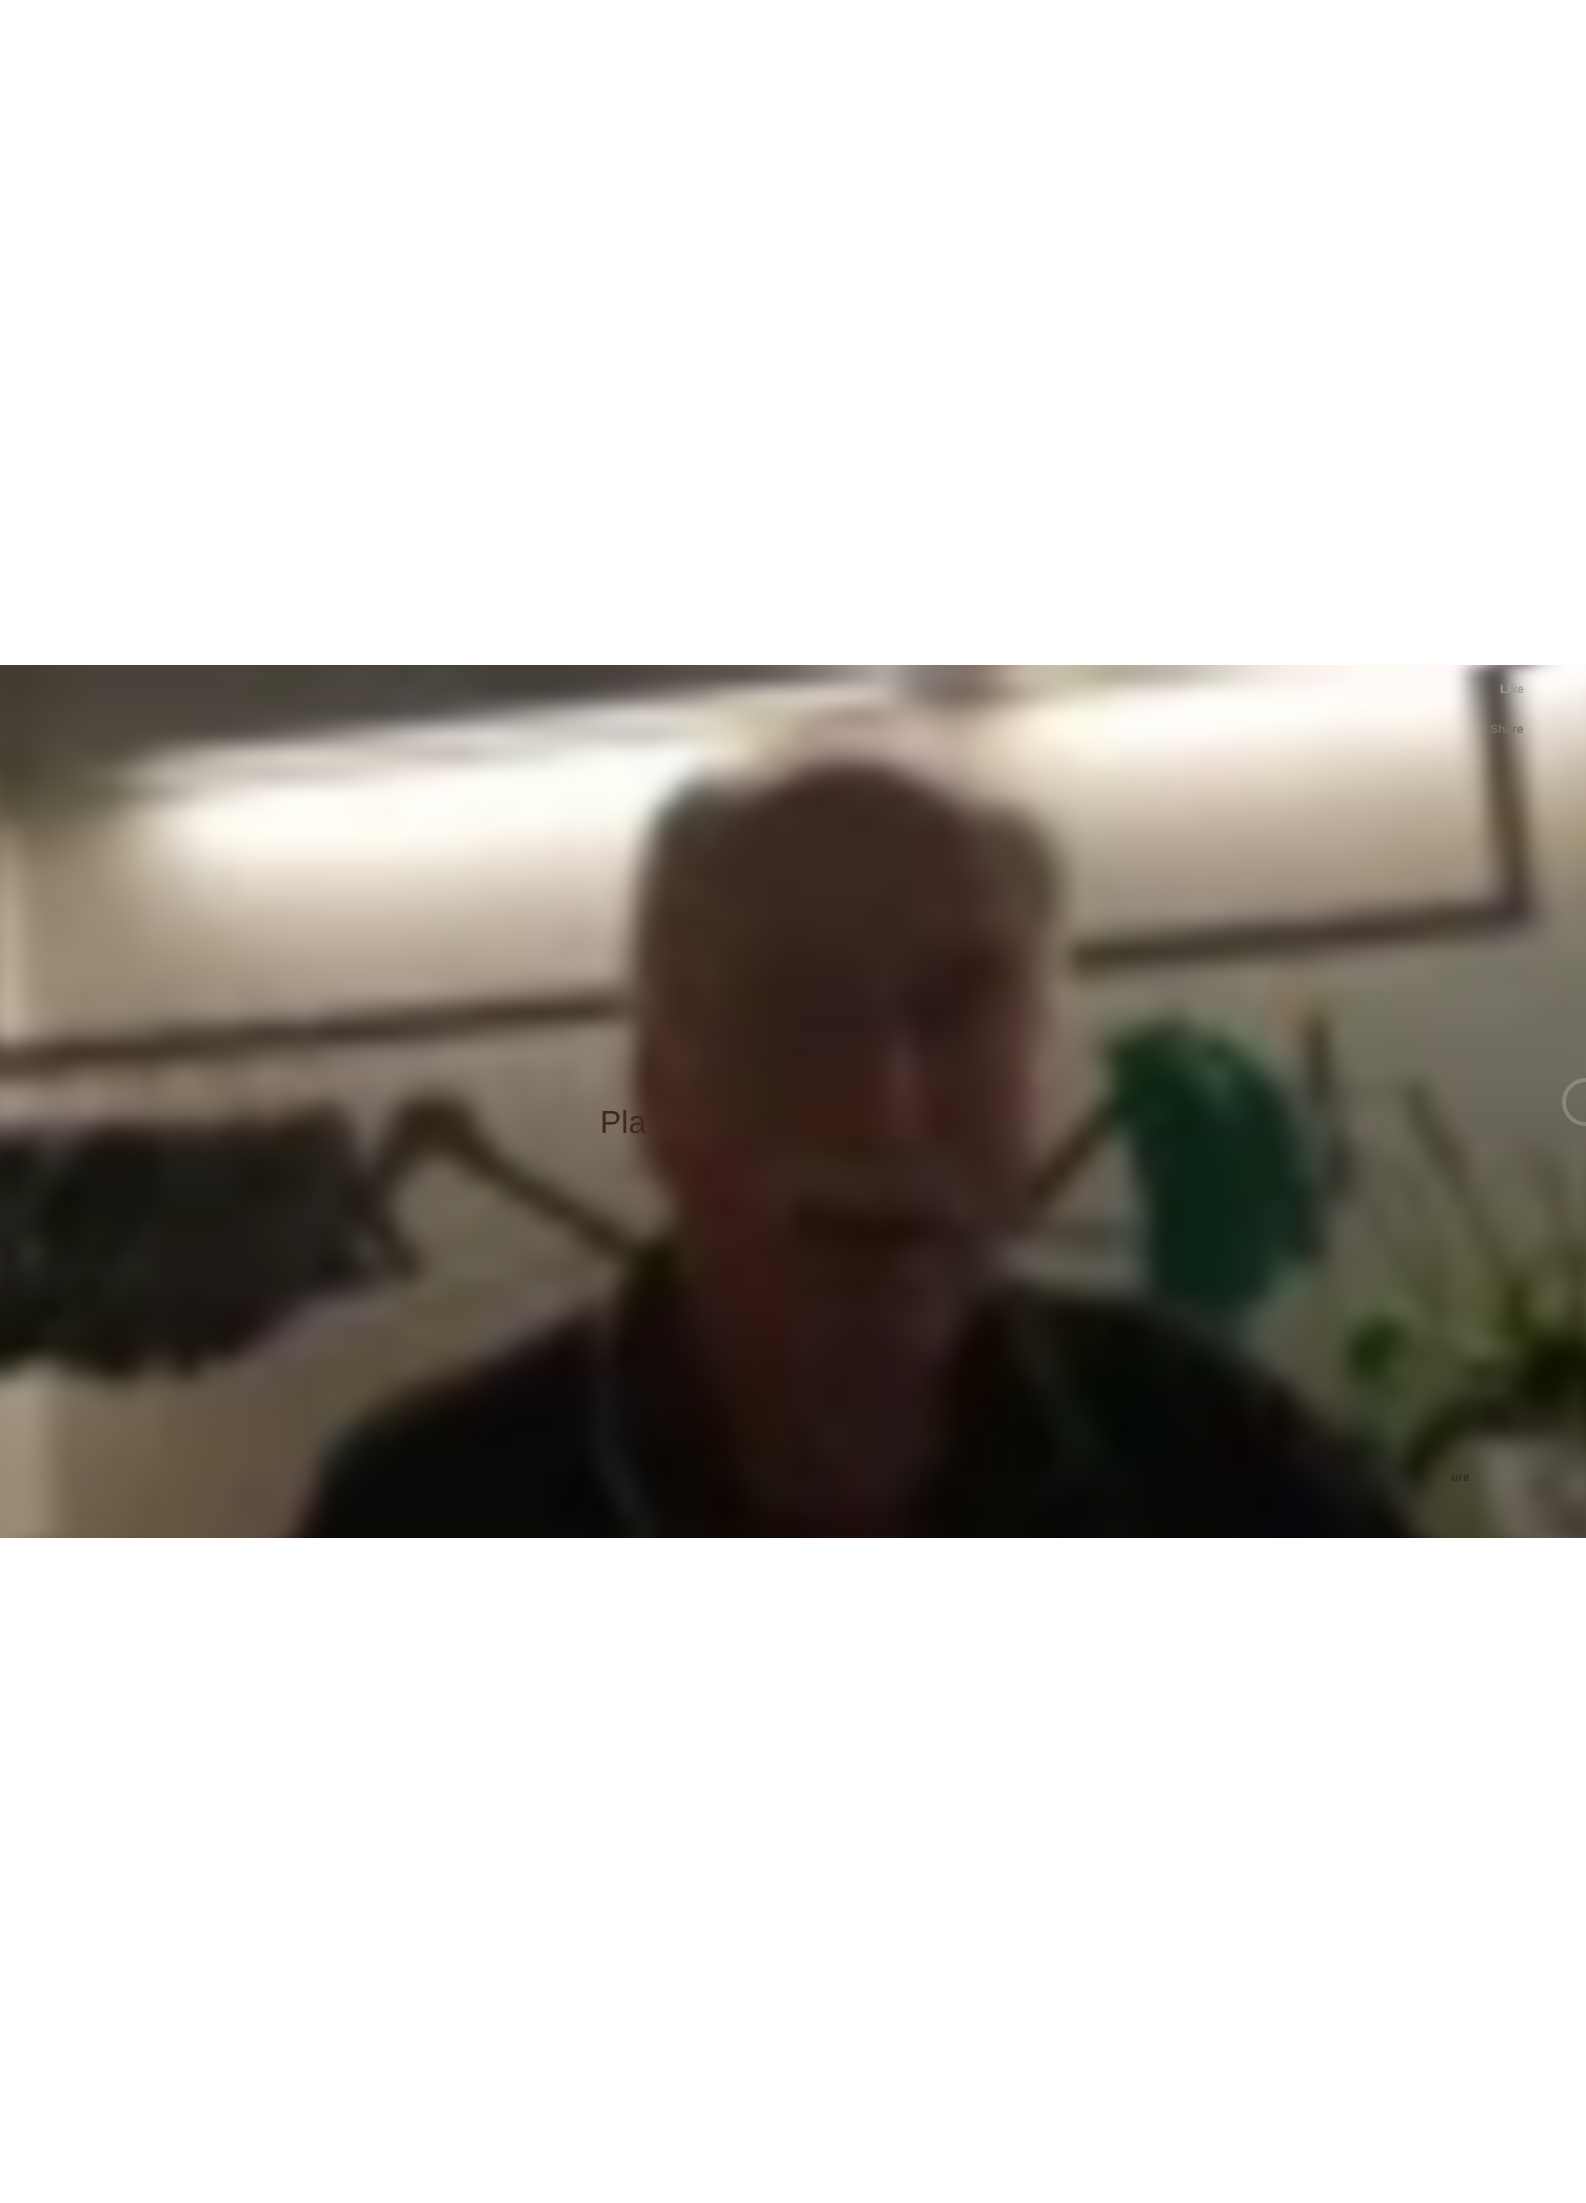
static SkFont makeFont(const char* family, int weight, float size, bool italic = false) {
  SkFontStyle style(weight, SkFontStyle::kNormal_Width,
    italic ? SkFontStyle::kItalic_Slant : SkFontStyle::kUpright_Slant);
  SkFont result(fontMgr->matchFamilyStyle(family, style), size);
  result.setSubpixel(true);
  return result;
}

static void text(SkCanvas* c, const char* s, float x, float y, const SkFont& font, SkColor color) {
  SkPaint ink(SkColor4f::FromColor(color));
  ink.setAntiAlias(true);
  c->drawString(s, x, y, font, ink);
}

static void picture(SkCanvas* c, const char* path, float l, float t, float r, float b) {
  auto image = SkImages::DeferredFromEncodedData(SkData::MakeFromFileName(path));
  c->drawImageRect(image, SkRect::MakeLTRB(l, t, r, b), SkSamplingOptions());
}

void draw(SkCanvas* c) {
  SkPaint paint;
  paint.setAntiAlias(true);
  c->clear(0xffffffff);
  picture(c, "img_01.png", 0, 665, 1586, 1538);
  picture(c, "img_02.png", 0, 665, 1586, 1538);
  SkFont face1 = makeFont("Liberation Sans", 400, 32);
  text(c, "Pla", 600, 1133, face1, 0xff412922);
  SkFont face2 = makeFont("Liberation Sans", 700, 12);
  text(c, "Like", 1500, 693, face2, 0xffa29c98);
  text(c, "Share", 1490, 733, face2, 0xff7a7168);
  text(c, "ure", 1451, 1481, face2, 0xff303122);
  paint.setStyle(SkPaint::kStroke_Style);
  paint.setStrokeWidth(4);
  paint.setColor(0x33ffffff);
  c->drawCircle(1586, 1102, 22, paint);
}
